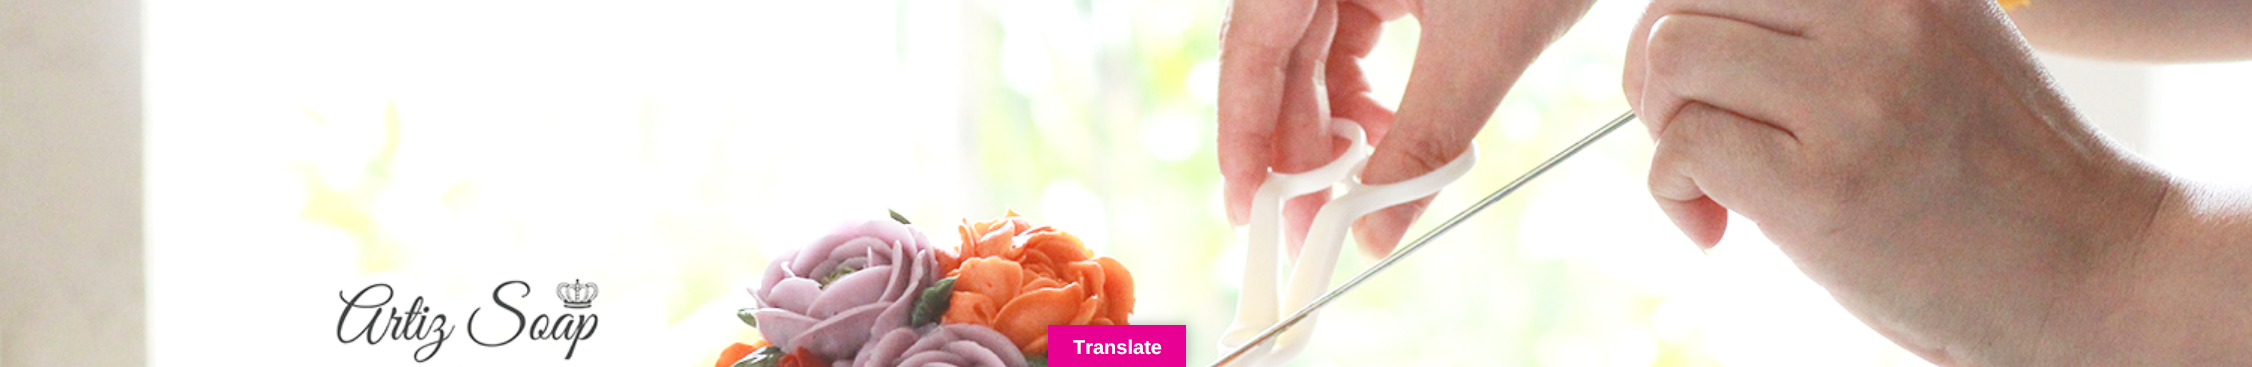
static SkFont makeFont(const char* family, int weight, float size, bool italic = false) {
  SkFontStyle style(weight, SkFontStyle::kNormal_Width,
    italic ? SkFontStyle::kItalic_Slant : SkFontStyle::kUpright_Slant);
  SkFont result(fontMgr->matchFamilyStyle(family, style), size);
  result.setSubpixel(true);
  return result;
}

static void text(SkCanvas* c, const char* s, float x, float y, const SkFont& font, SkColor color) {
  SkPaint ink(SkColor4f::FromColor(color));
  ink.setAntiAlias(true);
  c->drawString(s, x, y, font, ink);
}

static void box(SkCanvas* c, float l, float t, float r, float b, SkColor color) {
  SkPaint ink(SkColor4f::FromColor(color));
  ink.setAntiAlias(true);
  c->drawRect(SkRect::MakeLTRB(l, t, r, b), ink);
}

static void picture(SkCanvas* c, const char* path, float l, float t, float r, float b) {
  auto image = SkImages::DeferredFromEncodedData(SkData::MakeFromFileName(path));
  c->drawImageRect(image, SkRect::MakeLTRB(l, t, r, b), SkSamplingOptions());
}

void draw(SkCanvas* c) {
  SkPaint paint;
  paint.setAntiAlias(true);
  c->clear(0xffffffff);
  picture(c, "img_01.png", 0, 0, 2252, 367);
  paint.setColor(0x4d000000);
  paint.setMaskFilter(SkMaskFilter::MakeBlur(kNormal_SkBlurStyle, 5.5f));
  c->drawRect(SkRect::MakeLTRB(1048, 325, 1186, 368), paint);
  paint.setMaskFilter(nullptr);
  box(c, 1048, 325, 1186, 367, 0xffe80092);
  SkFont face1 = makeFont("Liberation Sans", 700, 20);
  text(c, "Translate", 1073, 354, face1, 0xffffffff);
}
